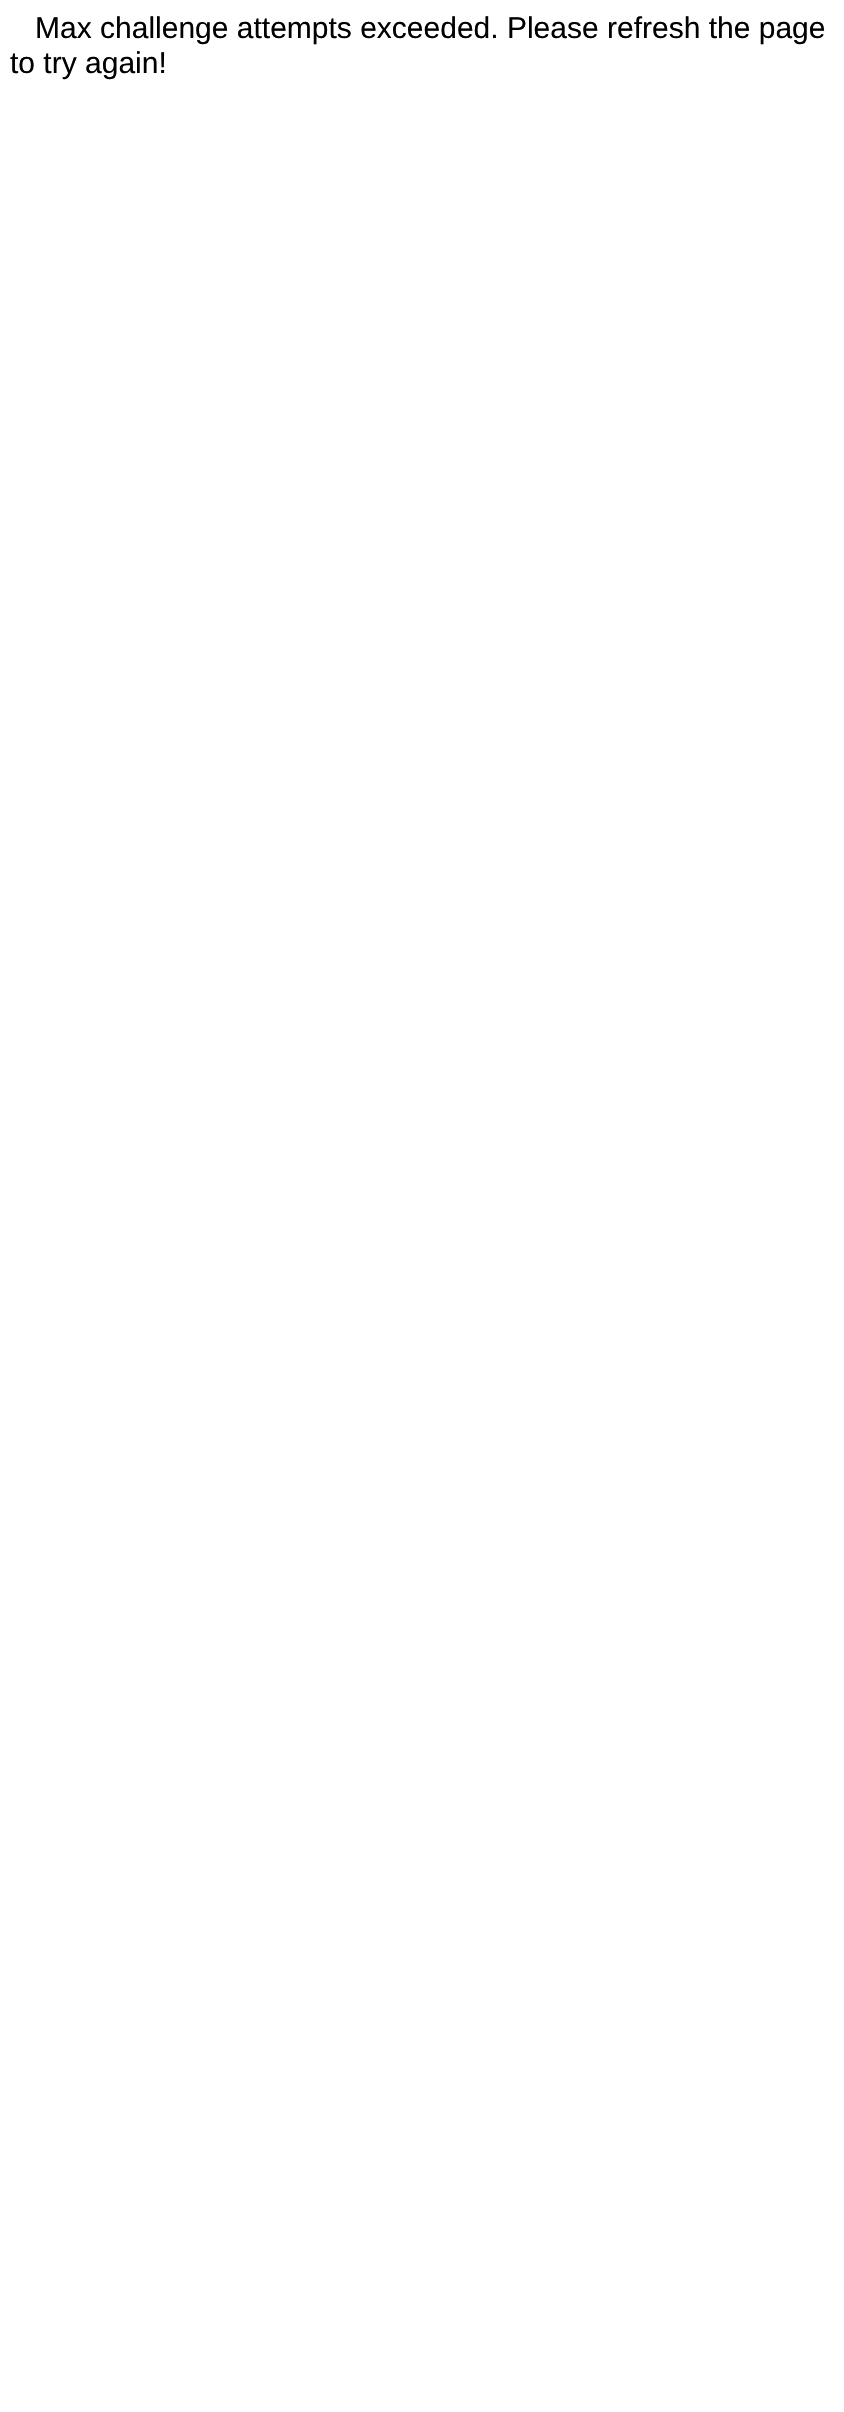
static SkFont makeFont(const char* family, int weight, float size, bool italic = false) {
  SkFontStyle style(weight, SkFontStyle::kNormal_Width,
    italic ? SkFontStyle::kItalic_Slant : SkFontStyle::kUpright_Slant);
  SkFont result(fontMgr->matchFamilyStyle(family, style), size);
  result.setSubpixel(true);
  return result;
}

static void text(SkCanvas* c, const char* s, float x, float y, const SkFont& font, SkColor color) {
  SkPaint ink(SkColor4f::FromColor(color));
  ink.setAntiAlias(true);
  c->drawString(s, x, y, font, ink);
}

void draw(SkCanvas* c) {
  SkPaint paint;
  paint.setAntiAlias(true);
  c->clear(0xffffffff);
  SkFont face1 = makeFont("Liberation Sans", 400, 30);
  text(c, "Max challenge attempts exceeded. Please refresh the page", 35, 38, face1, 0xff000000);
  text(c, "to try again!", 10, 73, face1, 0xff000000);
}
